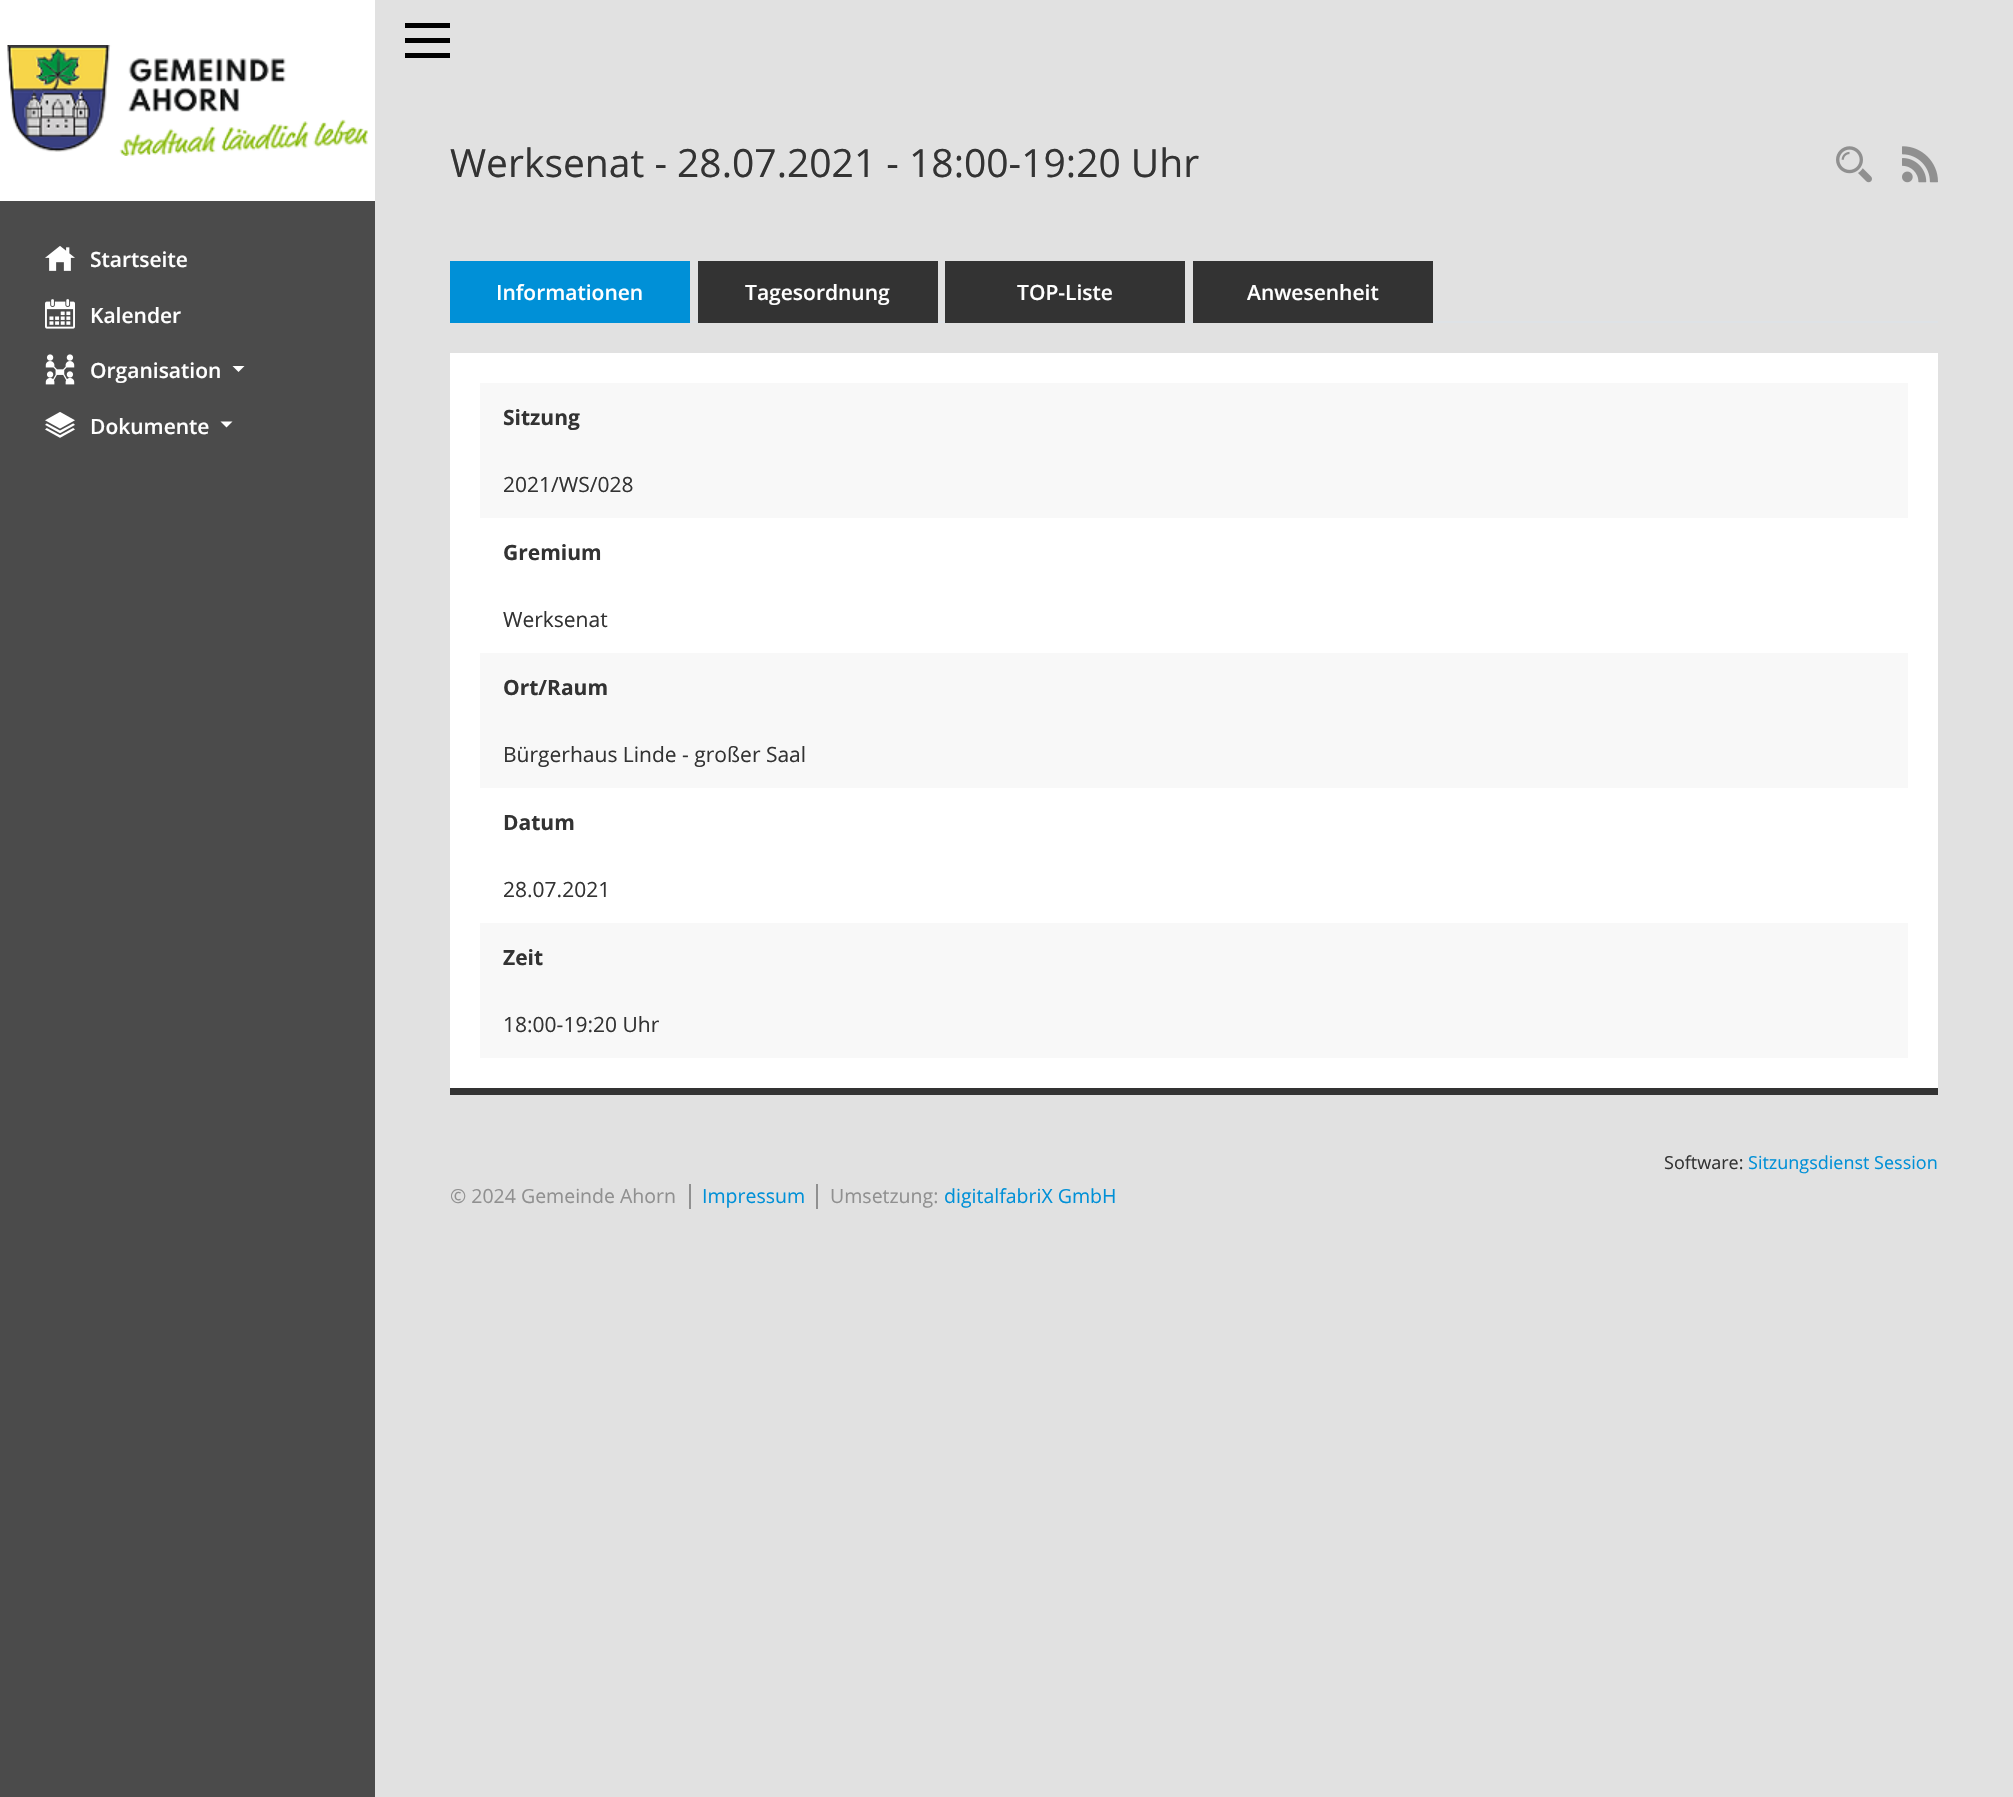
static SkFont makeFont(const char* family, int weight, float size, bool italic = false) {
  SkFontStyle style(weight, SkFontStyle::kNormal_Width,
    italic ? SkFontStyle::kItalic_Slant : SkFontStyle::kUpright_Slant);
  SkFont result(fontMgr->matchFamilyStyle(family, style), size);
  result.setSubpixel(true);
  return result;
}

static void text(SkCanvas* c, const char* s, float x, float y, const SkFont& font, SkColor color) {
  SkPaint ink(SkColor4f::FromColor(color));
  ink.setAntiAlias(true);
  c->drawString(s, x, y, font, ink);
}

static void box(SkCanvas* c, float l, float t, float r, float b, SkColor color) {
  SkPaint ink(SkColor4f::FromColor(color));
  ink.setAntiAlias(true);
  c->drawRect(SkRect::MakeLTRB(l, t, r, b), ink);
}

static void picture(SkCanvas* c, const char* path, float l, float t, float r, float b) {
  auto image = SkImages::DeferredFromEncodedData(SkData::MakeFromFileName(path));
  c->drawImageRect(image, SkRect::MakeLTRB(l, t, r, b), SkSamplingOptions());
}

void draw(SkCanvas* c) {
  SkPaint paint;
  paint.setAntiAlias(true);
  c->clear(0xffe1e1e1);
  box(c, 0, 201, 375, 1797, 0xff4b4b4b);
  box(c, 0, 0, 375, 201, 0xffffffff);
  picture(c, "img_01.png", 7, 45, 368, 156);
  picture(c, "img_02.png", 45, 246, 75, 271);
  SkFont face1 = makeFont("Open Sans", 600, 21);
  text(c, "Startseite", 90, 267, face1, 0xffffffff);
  picture(c, "img_03.png", 45, 299, 75, 329);
  text(c, "Kalender", 90, 323, face1, 0xffffffff);
  picture(c, "img_04.png", 45, 354, 75, 385);
  text(c, "Organisation", 90, 378, face1, 0xffffffff);
  paint.setColor(0xffffffff);
  c->drawPath(SkPathBuilder().moveTo(232.5f, 366).lineTo(244.5f, 366).lineTo(238.5f, 372).close().detach(), paint);
  picture(c, "img_05.png", 45, 412, 75, 438);
  text(c, "Dokumente", 90, 434, face1, 0xffffffff);
  c->drawPath(SkPathBuilder().moveTo(220.5f, 421.5f).lineTo(232.5f, 421.5f).lineTo(226.5f, 427.5f).close().detach(), paint);
  box(c, 405, 23, 450, 28, 0xff000000);
  box(c, 405, 38, 450, 43, 0xff000000);
  box(c, 405, 53, 450, 58, 0xff000000);
  SkFont face2 = makeFont("Open Sans", 400, 39);
  text(c, "Werksenat - 28.07.2021 - 18:00-19:20 Uhr", 450, 177, face2, 0xff333333);
  picture(c, "img_06.png", 1836, 146, 1872, 183);
  picture(c, "img_07.png", 1902, 146, 1938, 183);
  box(c, 690, 321, 1938, 323, 0xffdee2e6);
  box(c, 450, 261, 690, 323, 0xff0090d7);
  text(c, "Informationen", 496, 300, face1, 0xffffffff);
  box(c, 698, 261, 938, 323, 0xff333333);
  text(c, "Tagesordnung", 745, 300, face1, 0xffffffff);
  box(c, 945, 261, 1185, 323, 0xff333333);
  text(c, "TOP-Liste", 1017, 300, face1, 0xffffffff);
  box(c, 1193, 261, 1433, 323, 0xff333333);
  text(c, "Anwesenheit", 1247, 300, face1, 0xffffffff);
  box(c, 450, 353, 1938, 1088, 0xffffffff);
  box(c, 450, 1088, 1938, 1095, 0xff333333);
  box(c, 480, 383, 1908, 518, 0xfff8f8f8);
  SkFont face3 = makeFont("Open Sans", 700, 21);
  text(c, "Sitzung", 503, 425, face3, 0xff333333);
  SkFont face4 = makeFont("Open Sans", 400, 21);
  text(c, "2021/WS/028", 503, 492, face4, 0xff333333);
  text(c, "Gremium", 503, 560, face3, 0xff333333);
  text(c, "Werksenat", 503, 627, face4, 0xff333333);
  box(c, 480, 653, 1908, 788, 0xfff8f8f8);
  text(c, "Ort/Raum", 503, 695, face3, 0xff333333);
  text(c, "Bürgerhaus Linde - großer Saal", 503, 762, face4, 0xff333333);
  text(c, "Datum", 503, 830, face3, 0xff333333);
  text(c, "28.07.2021", 503, 897, face4, 0xff333333);
  box(c, 480, 923, 1908, 1058, 0xfff8f8f8);
  text(c, "Zeit", 503, 965, face3, 0xff333333);
  text(c, "18:00-19:20 Uhr", 503, 1032, face4, 0xff333333);
  SkFont face5 = makeFont("Open Sans", 400, 18);
  text(c, "Software:", 1664, 1169, face5, 0xff333333);
  text(c, "Sitzungsdienst Session", 1748, 1169, face5, 0xff0090d7);
  SkFont face6 = makeFont("Open Sans", 400, 19.5f);
  text(c, "© 2024 Gemeinde Ahorn", 450, 1203, face6, 0xff909090);
  box(c, 689, 1184, 691, 1209, 0xff909090);
  text(c, "Impressum", 702, 1203, face6, 0xff0090d7);
  box(c, 816, 1184, 818, 1209, 0xff909090);
  text(c, "Umsetzung:", 830, 1203, face6, 0xff909090);
  text(c, "digitalfabriX GmbH", 944, 1203, face6, 0xff0090d7);
}
